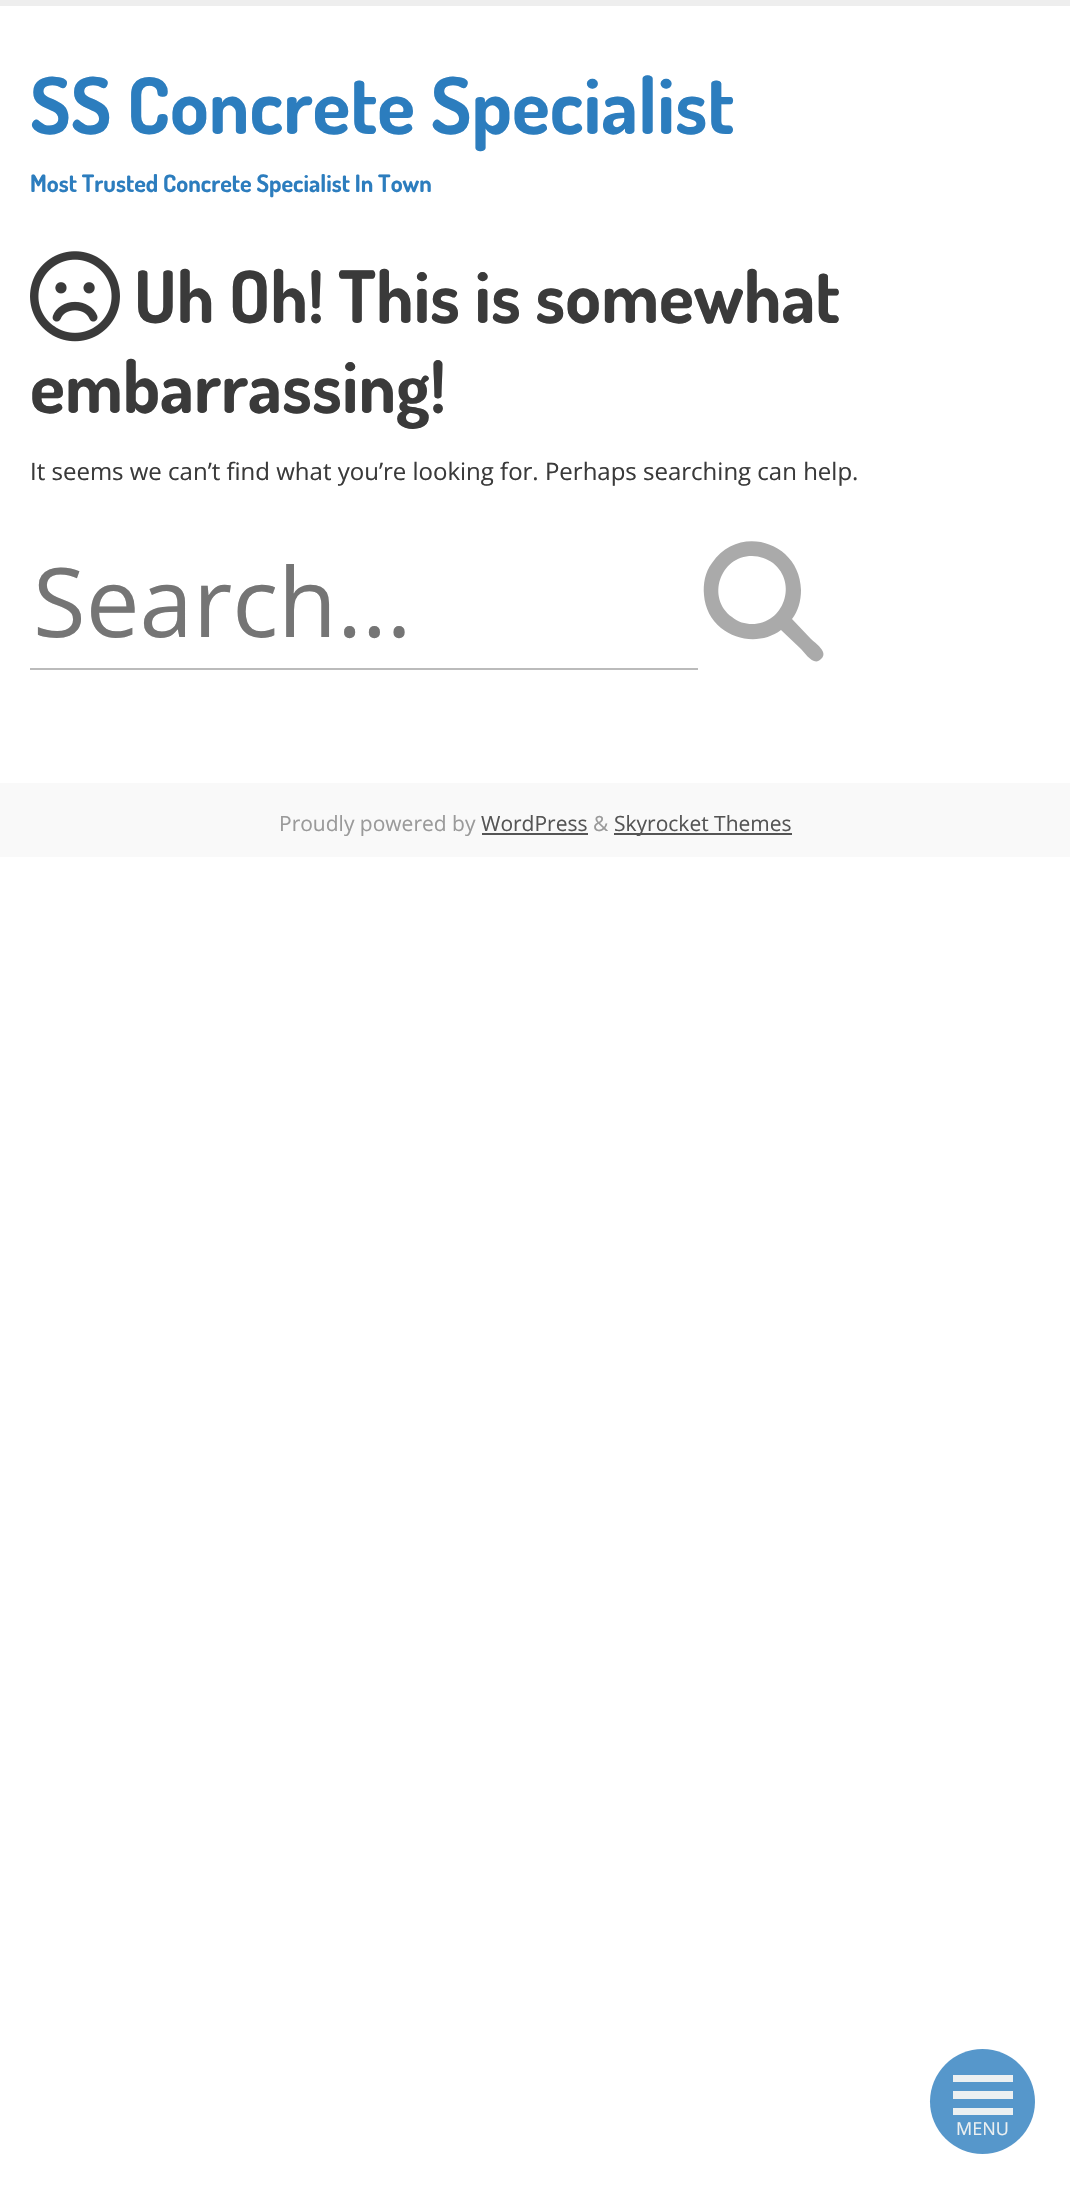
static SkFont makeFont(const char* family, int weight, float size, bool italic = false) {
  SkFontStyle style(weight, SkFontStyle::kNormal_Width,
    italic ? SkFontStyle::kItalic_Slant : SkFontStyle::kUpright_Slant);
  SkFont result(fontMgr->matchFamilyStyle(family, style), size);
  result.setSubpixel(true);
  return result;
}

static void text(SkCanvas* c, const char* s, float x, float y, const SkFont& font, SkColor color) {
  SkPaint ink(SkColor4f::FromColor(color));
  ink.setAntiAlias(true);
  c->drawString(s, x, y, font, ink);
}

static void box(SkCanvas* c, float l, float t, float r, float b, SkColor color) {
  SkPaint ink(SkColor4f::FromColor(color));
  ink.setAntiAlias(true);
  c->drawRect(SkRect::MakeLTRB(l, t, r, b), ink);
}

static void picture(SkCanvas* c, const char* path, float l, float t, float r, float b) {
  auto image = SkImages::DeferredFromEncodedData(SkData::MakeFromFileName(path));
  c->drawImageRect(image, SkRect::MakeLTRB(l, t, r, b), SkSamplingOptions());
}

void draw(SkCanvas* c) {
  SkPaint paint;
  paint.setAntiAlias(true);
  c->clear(0xffffffff);
  box(c, 0, 0, 1070, 6, 0xffeeeeee);
  SkFont face1 = makeFont("Dosis", 700, 78);
  text(c, "SS Concrete Specialist", 30, 134, face1, 0xff2c7dbe);
  SkFont face2 = makeFont("Dosis", 700, 24);
  text(c, "Most Trusted Concrete Specialist In Town", 30, 192, face2, 0xff2c7dbe);
  picture(c, "img_01.png", 30, 251, 120, 342);
  SkFont face3 = makeFont("Dosis", 700, 72);
  text(c, "Uh Oh! This is somewhat", 134, 323, face3, 0xff3a3a3a);
  text(c, "embarrassing!", 30, 413, face3, 0xff3a3a3a);
  SkFont face4 = makeFont("Open Sans", 400, 24);
  text(c, "It seems we can’t find what you’re looking for. Perhaps searching can help.", 30, 480, face4, 0xff3a3a3a);
  box(c, 30, 668, 698, 670, 0xffbbbbbb);
  SkFont face5 = makeFont("Open Sans", 400, 96);
  text(c, "Search…", 33, 637, face5, 0xff757575);
  paint.setColor(0xffaaaaaa);
  c->drawPath(SkPathBuilder().moveTo(801, 590).cubicTo(801, 601, 798, 611, 792, 619).lineTo(811, 639).cubicTo(815, 643, 829, 652, 821, 659).cubicTo(814, 667, 805, 653, 801, 649).lineTo(781, 630).cubicTo(764, 643, 738, 642, 721, 628).cubicTo(711, 620, 705, 608, 704, 595).cubicTo(703, 584, 705, 572, 712, 563).cubicTo(739, 523, 800, 542, 801, 590).close().moveTo(752, 624).cubicTo(784, 624, 798, 583, 773, 563).cubicTo(767, 559, 760, 556, 752, 556).cubicTo(720, 556, 706, 598, 732, 617).cubicTo(738, 622, 745, 624, 752, 624).close().detach(), paint);
  box(c, 0, 783, 1070, 857, 0xfff9f9f9);
  SkFont face6 = makeFont("Open Sans", 400, 21);
  text(c, "Proudly powered by", 279, 831, face6, 0xff9a9a9a);
  text(c, "WordPress", 481, 831, face6, 0xff555555);
  box(c, 482, 833, 588, 835, 0xff555555);
  text(c, "&", 593, 831, face6, 0xff9a9a9a);
  box(c, 614, 833, 792, 835, 0xff555555);
  text(c, "Skyrocket Themes", 614, 831, face6, 0xff555555);
  paint.setColor(0xff5697cb);
  c->drawCircle(982.5f, 2101.5f, 52.5f, paint);
  box(c, 953, 2075, 1013, 2082, 0xffecf0f1);
  box(c, 953, 2091, 1013, 2099, 0xffecf0f1);
  box(c, 953, 2108, 1013, 2115, 0xffecf0f1);
  SkFont face7 = makeFont("Open Sans", 400, 18);
  text(c, "MENU", 956, 2135, face7, 0xffecf0f1);
}
